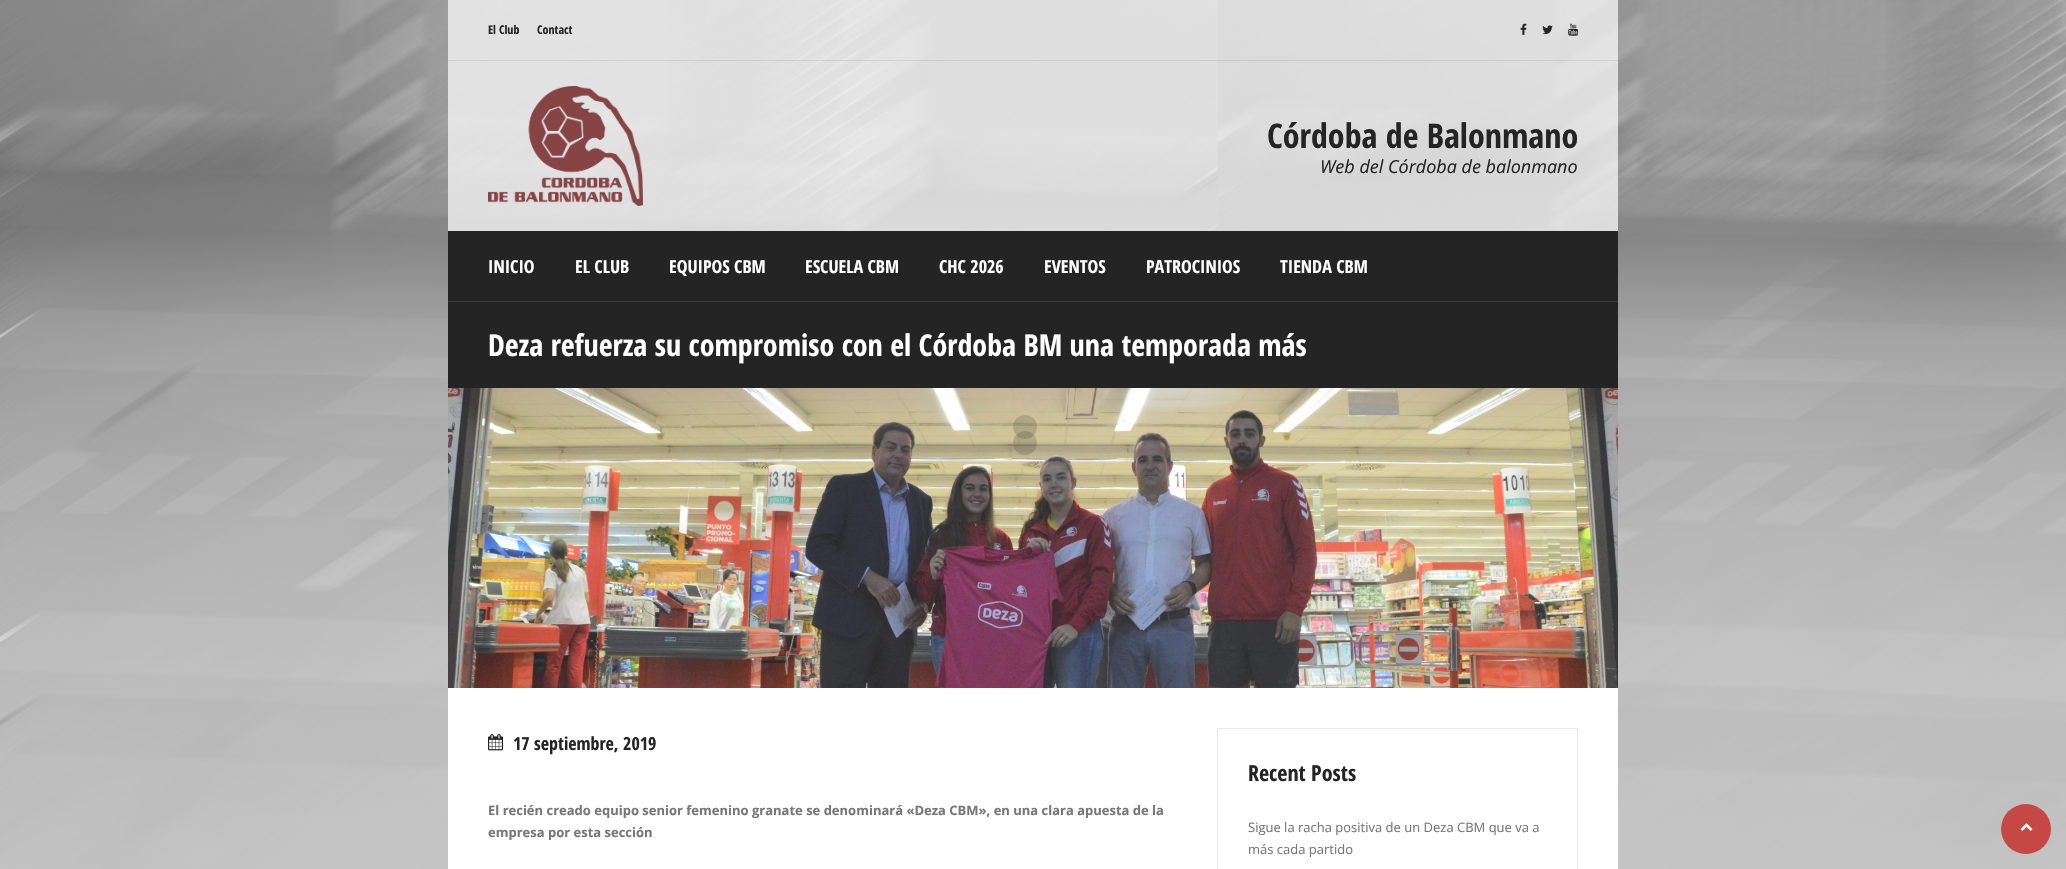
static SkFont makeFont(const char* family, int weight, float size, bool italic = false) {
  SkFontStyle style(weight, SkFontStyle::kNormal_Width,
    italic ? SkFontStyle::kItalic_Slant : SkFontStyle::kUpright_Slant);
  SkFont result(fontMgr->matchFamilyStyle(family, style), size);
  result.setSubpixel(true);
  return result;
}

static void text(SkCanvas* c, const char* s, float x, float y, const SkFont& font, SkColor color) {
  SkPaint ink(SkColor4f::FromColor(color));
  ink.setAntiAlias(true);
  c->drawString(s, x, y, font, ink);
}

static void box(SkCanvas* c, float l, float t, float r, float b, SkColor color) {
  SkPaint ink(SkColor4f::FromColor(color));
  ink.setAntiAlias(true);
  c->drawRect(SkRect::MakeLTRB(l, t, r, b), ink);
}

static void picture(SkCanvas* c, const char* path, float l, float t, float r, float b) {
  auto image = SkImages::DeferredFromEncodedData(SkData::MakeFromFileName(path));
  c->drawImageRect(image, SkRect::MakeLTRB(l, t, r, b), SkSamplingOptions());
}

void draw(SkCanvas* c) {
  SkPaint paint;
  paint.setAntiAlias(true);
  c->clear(0xffffffff);
  picture(c, "img_01.png", 0, 0, 2066, 869);
  box(c, 448, 0, 1618, 61, 0xb3ffffff);
  box(c, 448, 60, 1618, 61, 0x1a242424);
  SkFont face1 = makeFont("Open Sans Condensed", 700, 12);
  text(c, "El Club", 488, 34, face1, 0xff242424);
  text(c, "Contact", 537, 34, face1, 0xff242424);
  picture(c, "img_02.png", 1520, 23, 1527, 35);
  picture(c, "img_03.png", 1542, 25, 1553, 34);
  picture(c, "img_04.png", 1568, 23, 1579, 36);
  box(c, 448, 61, 1618, 231, 0xb3ffffff);
  picture(c, "img_05.png", 488, 86, 643, 206);
  SkFont face2 = makeFont("Open Sans Condensed", 700, 34);
  text(c, "Córdoba de Balonmano", 1267, 148, face2, 0xff242424);
  SkFont face3 = makeFont("Open Sans", 400, 18, true);
  text(c, "Web del Córdoba de balonmano", 1320, 173, face3, 0xff242424);
  box(c, 448, 231, 1618, 301, 0xff242424);
  SkFont face4 = makeFont("Open Sans Condensed", 700, 18);
  text(c, "INICIO", 488, 273, face4, 0xffffffff);
  text(c, "EL CLUB", 575, 273, face4, 0xffffffff);
  text(c, "EQUIPOS CBM", 669, 273, face4, 0xffffffff);
  text(c, "ESCUELA CBM", 805, 273, face4, 0xffffffff);
  text(c, "CHC 2026", 939, 273, face4, 0xffffffff);
  text(c, "EVENTOS", 1044, 273, face4, 0xffffffff);
  text(c, "PATROCINIOS", 1146, 273, face4, 0xffffffff);
  text(c, "TIENDA CBM", 1280, 273, face4, 0xffffffff);
  box(c, 448, 302, 1618, 388, 0xff242424);
  box(c, 448, 301, 1618, 302, 0xff3a3a3a);
  SkFont face5 = makeFont("Open Sans Condensed", 700, 30);
  text(c, "Deza refuerza su compromiso con el Córdoba BM una temporada más", 488, 356, face5, 0xffffffff);
  picture(c, "img_06.png", 448, 388, 1618, 688);
  box(c, 448, 688, 1618, 869, 0xffffffff);
  picture(c, "img_07.png", 488, 734, 504, 751);
  text(c, "17 septiembre, 2019", 513, 750, face4, 0xff242424);
  SkFont face6 = makeFont("Open Sans", 700, 13);
  text(c, "El recién creado equipo senior femenino granate se denominará «Deza CBM», en una clara apuesta de la", 488, 815, face6, 0xff777777);
  text(c, "empresa por esta sección", 488, 837, face6, 0xff777777);
  paint.setStyle(SkPaint::kStroke_Style);
  paint.setStrokeWidth(1);
  paint.setColor(0xffeaeaea);
  c->drawRect(SkRect::MakeLTRB(1217.5f, 728.5f, 1577.5f, 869.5f), paint);
  SkFont face7 = makeFont("Open Sans Condensed", 700, 22);
  text(c, "Recent Posts", 1248, 781, face7, 0xff242424);
  SkFont face8 = makeFont("Open Sans", 400, 13);
  text(c, "Sigue la racha positiva de un Deza CBM que va a", 1248, 832, face8, 0xff777777);
  text(c, "más cada partido", 1248, 854, face8, 0xff777777);
  paint.setStyle(SkPaint::kFill_Style);
  paint.setColor(0xffc54845);
  c->drawCircle(2026, 829, 25, paint);
  picture(c, "img_08.png", 2020, 823, 2033, 831);
  paint.setColor(0x24000000);
  c->drawCircle(1025, 427, 12, paint);
  c->drawCircle(1025, 443, 12, paint);
}
